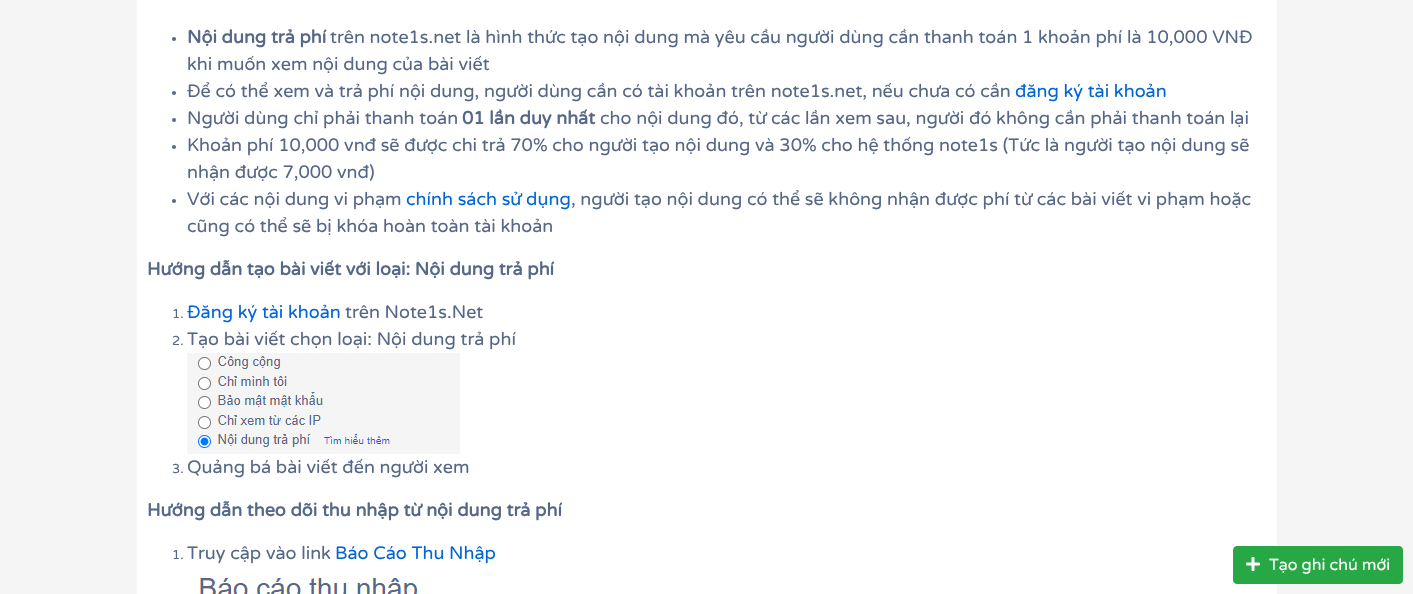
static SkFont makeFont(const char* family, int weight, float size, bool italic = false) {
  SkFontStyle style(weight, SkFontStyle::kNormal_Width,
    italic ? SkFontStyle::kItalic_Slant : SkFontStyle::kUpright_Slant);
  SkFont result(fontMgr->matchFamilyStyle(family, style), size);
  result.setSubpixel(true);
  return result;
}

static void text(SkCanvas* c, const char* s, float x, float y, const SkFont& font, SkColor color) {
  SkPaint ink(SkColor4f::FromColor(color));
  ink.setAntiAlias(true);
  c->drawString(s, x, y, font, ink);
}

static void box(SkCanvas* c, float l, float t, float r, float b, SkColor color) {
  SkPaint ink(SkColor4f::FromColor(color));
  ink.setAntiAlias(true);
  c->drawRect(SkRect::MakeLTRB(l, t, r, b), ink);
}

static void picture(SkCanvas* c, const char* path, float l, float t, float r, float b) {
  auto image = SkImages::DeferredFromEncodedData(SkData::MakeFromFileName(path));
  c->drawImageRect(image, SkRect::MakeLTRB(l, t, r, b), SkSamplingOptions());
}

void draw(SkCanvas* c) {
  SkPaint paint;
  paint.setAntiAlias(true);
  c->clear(0xfff5f5f5);
  box(c, 137, 0, 1277, 594, 0xffffffff);
  paint.setColor(0xff566787);
  c->drawCircle(174, 39, 2, paint);
  SkFont face1 = makeFont("Varela Round", 700, 18);
  text(c, "Nội dung trả phí", 187, 43, face1, 0xff566787);
  SkFont face2 = makeFont("Varela Round", 400, 18);
  text(c, "trên note1s.net là hình thức tạo nội dung mà yêu cầu người dùng cần thanh toán 1 khoản phí là 10,000 VNĐ", 330, 43, face2, 0xff566787);
  text(c, "khi muốn xem nội dung của bài viết", 187, 70, face2, 0xff566787);
  c->drawCircle(174, 93, 2, paint);
  text(c, "Để có thể xem và trả phí nội dung, người dùng cần có tài khoản trên note1s.net, nếu chưa có cần", 187, 97, face2, 0xff566787);
  text(c, "đăng ký tài khoản", 1015, 97, face2, 0xff0366d6);
  c->drawCircle(174, 120, 2, paint);
  text(c, "Người dùng chỉ phải thanh toán", 187, 124, face2, 0xff566787);
  text(c, "01 lần duy nhất", 462, 124, face1, 0xff566787);
  text(c, "cho nội dung đó, từ các lần xem sau, người đó không cần phải thanh toán lại", 600, 124, face2, 0xff566787);
  c->drawCircle(174, 147, 2, paint);
  text(c, "Khoản phí 10,000 vnđ sẽ được chi trả 70% cho người tạo nội dung và 30% cho hệ thống note1s (Tức là người tạo nội dung sẽ", 187, 151, face2, 0xff566787);
  text(c, "nhận được 7,000 vnđ)", 187, 178, face2, 0xff566787);
  c->drawCircle(174, 201, 2, paint);
  text(c, "Với các nội dung vi phạm", 187, 205, face2, 0xff566787);
  text(c, "chính sách sử dụng", 406, 205, face2, 0xff0366d6);
  text(c, ", người tạo nội dung có thể sẽ không nhận được phí từ các bài viết vi phạm hoặc", 571, 205, face2, 0xff566787);
  text(c, "cũng có thể sẽ bị khóa hoàn toàn tài khoản", 187, 232, face2, 0xff566787);
  text(c, "Hướng dẫn tạo bài viết với loại: Nội dung trả phí", 147, 275, face1, 0xff566787);
  SkFont face3 = makeFont("Varela Round", 400, 13);
  text(c, "1.", 172, 318, face3, 0xff566787);
  text(c, "Đăng ký tài khoản", 187, 318, face2, 0xff0366d6);
  text(c, "trên Note1s.Net", 345, 318, face2, 0xff566787);
  text(c, "2.", 172, 345, face3, 0xff566787);
  text(c, "Tạo bài viết chọn loại: Nội dung trả phí", 187, 345, face2, 0xff566787);
  picture(c, "img_01.png", 187, 353, 460, 454);
  text(c, "3.", 172, 473, face3, 0xff566787);
  text(c, "Quảng bá bài viết đến người xem", 187, 473, face2, 0xff566787);
  text(c, "Hướng dẫn theo dõi thu nhập từ nội dung trả phí", 147, 516, face1, 0xff566787);
  text(c, "1.", 172, 559, face3, 0xff566787);
  text(c, "Truy cập vào link", 187, 559, face2, 0xff566787);
  text(c, "Báo Cáo Thu Nhập", 335, 559, face2, 0xff0366d6);
  picture(c, "img_02.png", 200, 578, 418, 594);
  paint.setColor(0xff28a745);
  c->drawRoundRect(SkRect::MakeLTRB(1233.5f, 546.5f, 1402.5f, 583.5f), 3.5f, 3.5f, paint);
  paint.setStyle(SkPaint::kStroke_Style);
  paint.setStrokeWidth(1);
  c->drawRoundRect(SkRect::MakeLTRB(1233.5f, 546.5f, 1402.5f, 583.5f), 3.5f, 3.5f, paint);
  picture(c, "img_03.png", 1246, 557, 1260, 571);
  SkFont face4 = makeFont("Varela Round", 400, 16);
  text(c, "Tạo ghi chú mới", 1269, 570, face4, 0xffffffff);
}
